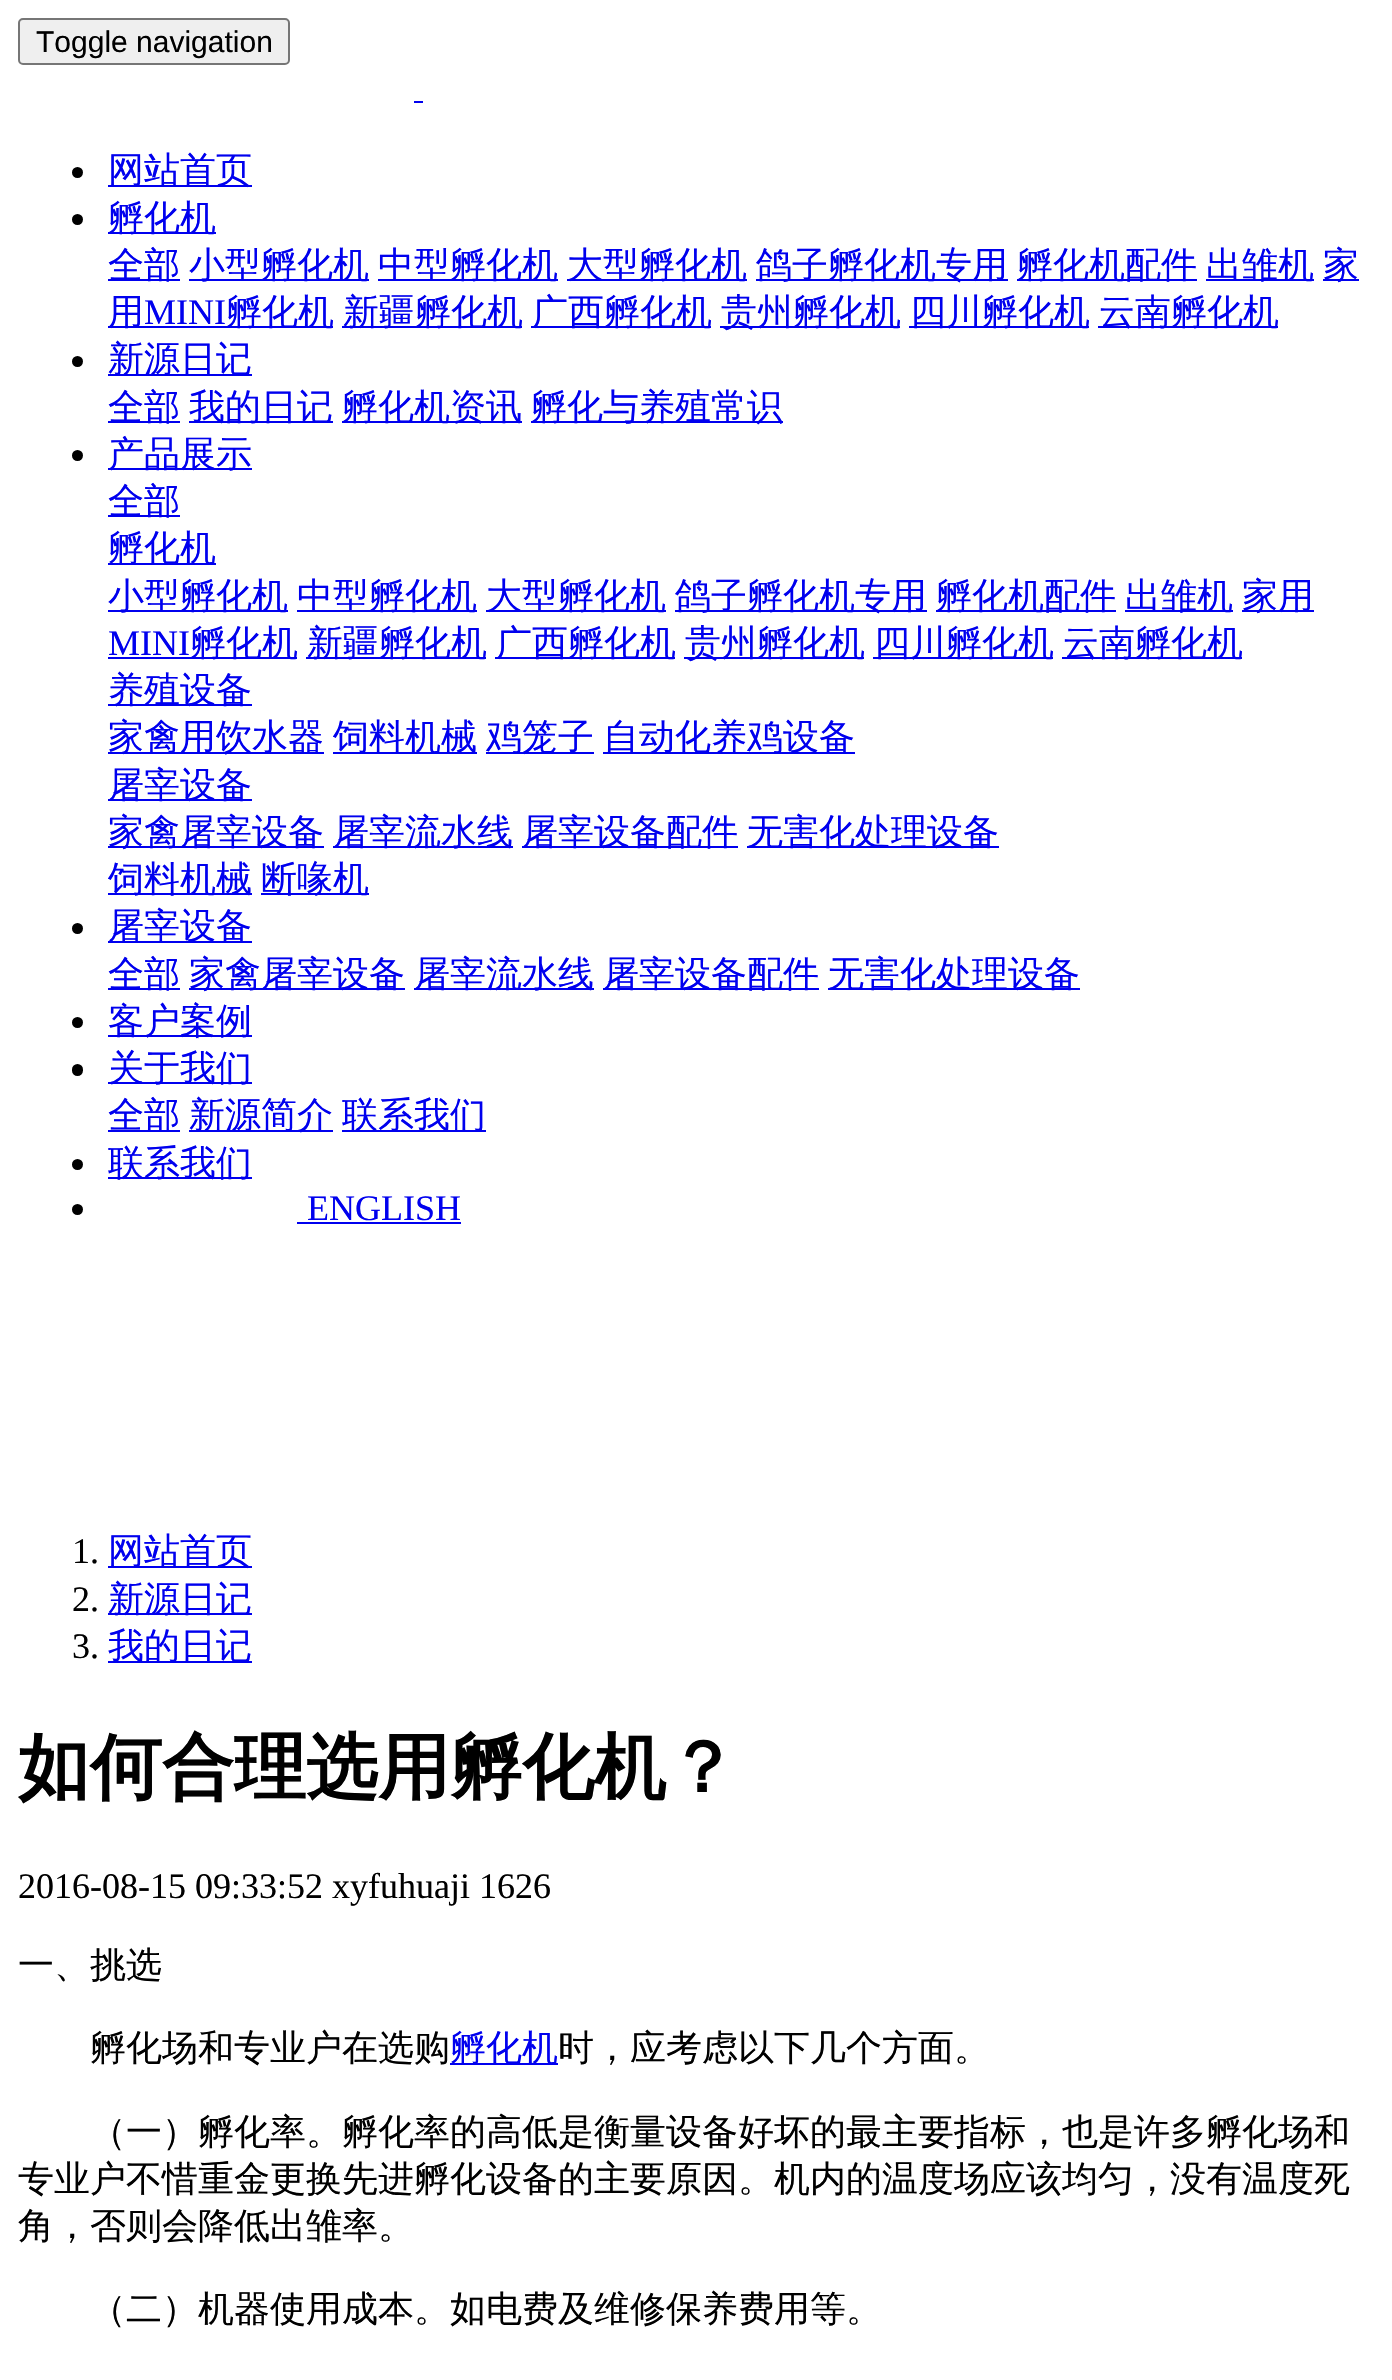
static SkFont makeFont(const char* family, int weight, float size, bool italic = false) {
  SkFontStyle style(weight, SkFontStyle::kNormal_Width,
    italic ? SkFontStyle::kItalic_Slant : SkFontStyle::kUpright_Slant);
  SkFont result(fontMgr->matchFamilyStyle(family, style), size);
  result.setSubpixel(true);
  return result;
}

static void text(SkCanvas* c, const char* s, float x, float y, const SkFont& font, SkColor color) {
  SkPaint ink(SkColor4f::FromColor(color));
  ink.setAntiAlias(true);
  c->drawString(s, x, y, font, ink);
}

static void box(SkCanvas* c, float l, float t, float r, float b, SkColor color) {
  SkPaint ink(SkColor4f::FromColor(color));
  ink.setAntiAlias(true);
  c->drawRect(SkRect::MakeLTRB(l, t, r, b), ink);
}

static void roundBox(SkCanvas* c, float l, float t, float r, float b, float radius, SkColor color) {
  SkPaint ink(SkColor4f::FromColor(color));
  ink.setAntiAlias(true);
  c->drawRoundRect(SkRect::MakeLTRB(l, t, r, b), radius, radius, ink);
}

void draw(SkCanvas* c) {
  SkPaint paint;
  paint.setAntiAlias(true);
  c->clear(0xffffffff);
  paint.setColor(0xffefefef);
  c->drawRoundRect(SkRect::MakeLTRB(19, 19, 289, 64), 4, 4, paint);
  paint.setStyle(SkPaint::kStroke_Style);
  paint.setStrokeWidth(2);
  paint.setColor(0xff767676);
  c->drawRoundRect(SkRect::MakeLTRB(19, 19, 289, 64), 4, 4, paint);
  SkFont face1 = makeFont("Liberation Sans", 400, 30);
  text(c, "Toggle navigation", 36, 52, face1, 0xff000000);
  box(c, 414, 101, 423, 103, 0xff0000ee);
  paint.setStyle(SkPaint::kFill_Style);
  paint.setColor(0xff000000);
  c->drawCircle(77.5f, 172.5f, 5.5f, paint);
  box(c, 108, 185, 252, 187, 0xff0000ee);
  SkFont face2 = makeFont("WenQuanYi Zen Hei", 500, 36);
  text(c, "网站首页", 108, 182, face2, 0xff0000ee);
  c->drawCircle(77.5f, 219.5f, 5.5f, paint);
  box(c, 108, 232, 216, 234, 0xff0000ee);
  text(c, "孵化机", 108, 230, face2, 0xff0000ee);
  box(c, 108, 279, 180, 281, 0xff0000ee);
  text(c, "全部", 108, 277, face2, 0xff0000ee);
  box(c, 189, 279, 369, 281, 0xff0000ee);
  text(c, "小型孵化机", 189, 277, face2, 0xff0000ee);
  box(c, 378, 279, 558, 281, 0xff0000ee);
  text(c, "中型孵化机", 378, 277, face2, 0xff0000ee);
  box(c, 567, 279, 747, 281, 0xff0000ee);
  text(c, "大型孵化机", 567, 277, face2, 0xff0000ee);
  box(c, 756, 279, 1008, 281, 0xff0000ee);
  text(c, "鸽子孵化机专用", 756, 277, face2, 0xff0000ee);
  box(c, 1017, 279, 1197, 281, 0xff0000ee);
  text(c, "孵化机配件", 1017, 277, face2, 0xff0000ee);
  box(c, 1206, 279, 1314, 281, 0xff0000ee);
  text(c, "出雏机", 1206, 277, face2, 0xff0000ee);
  box(c, 1323, 279, 1359, 281, 0xff0000ee);
  text(c, "家", 1323, 277, face2, 0xff0000ee);
  box(c, 108, 326, 333, 328, 0xff0000ee);
  text(c, "用", 108, 324, face2, 0xff0000ee);
  SkFont face3 = makeFont("Liberation Serif", 400, 36);
  text(c, "MINI", 144, 324, face3, 0xff0000ee);
  text(c, "孵化机", 226, 324, face2, 0xff0000ee);
  box(c, 342, 326, 522, 328, 0xff0000ee);
  text(c, "新疆孵化机", 343, 324, face2, 0xff0000ee);
  box(c, 531, 326, 711, 328, 0xff0000ee);
  text(c, "广西孵化机", 532, 324, face2, 0xff0000ee);
  box(c, 720, 326, 900, 328, 0xff0000ee);
  text(c, "贵州孵化机", 721, 324, face2, 0xff0000ee);
  box(c, 909, 326, 1089, 328, 0xff0000ee);
  text(c, "四川孵化机", 910, 324, face2, 0xff0000ee);
  box(c, 1098, 326, 1278, 328, 0xff0000ee);
  text(c, "云南孵化机", 1099, 324, face2, 0xff0000ee);
  c->drawCircle(77.5f, 361.5f, 5.5f, paint);
  box(c, 108, 374, 252, 376, 0xff0000ee);
  text(c, "新源日记", 108, 371, face2, 0xff0000ee);
  box(c, 108, 421, 180, 423, 0xff0000ee);
  text(c, "全部", 108, 419, face2, 0xff0000ee);
  box(c, 189, 421, 333, 423, 0xff0000ee);
  text(c, "我的日记", 189, 419, face2, 0xff0000ee);
  box(c, 342, 421, 522, 423, 0xff0000ee);
  text(c, "孵化机资讯", 342, 419, face2, 0xff0000ee);
  box(c, 531, 421, 783, 423, 0xff0000ee);
  text(c, "孵化与养殖常识", 531, 419, face2, 0xff0000ee);
  c->drawCircle(77.5f, 455.5f, 5.5f, paint);
  box(c, 108, 468, 252, 470, 0xff0000ee);
  text(c, "产品展示", 108, 466, face2, 0xff0000ee);
  box(c, 108, 515, 180, 517, 0xff0000ee);
  text(c, "全部", 108, 513, face2, 0xff0000ee);
  box(c, 108, 563, 216, 565, 0xff0000ee);
  text(c, "孵化机", 108, 560, face2, 0xff0000ee);
  box(c, 108, 610, 288, 612, 0xff0000ee);
  text(c, "小型孵化机", 108, 608, face2, 0xff0000ee);
  box(c, 297, 610, 477, 612, 0xff0000ee);
  text(c, "中型孵化机", 297, 608, face2, 0xff0000ee);
  box(c, 486, 610, 666, 612, 0xff0000ee);
  text(c, "大型孵化机", 486, 608, face2, 0xff0000ee);
  box(c, 675, 610, 927, 612, 0xff0000ee);
  text(c, "鸽子孵化机专用", 675, 608, face2, 0xff0000ee);
  box(c, 936, 610, 1116, 612, 0xff0000ee);
  text(c, "孵化机配件", 936, 608, face2, 0xff0000ee);
  box(c, 1125, 610, 1233, 612, 0xff0000ee);
  text(c, "出雏机", 1125, 608, face2, 0xff0000ee);
  box(c, 1242, 610, 1314, 612, 0xff0000ee);
  text(c, "家用", 1242, 608, face2, 0xff0000ee);
  text(c, "MINI", 108, 655, face3, 0xff0000ee);
  box(c, 108, 657, 297, 659, 0xff0000ee);
  text(c, "孵化机", 190, 655, face2, 0xff0000ee);
  box(c, 306, 657, 486, 659, 0xff0000ee);
  text(c, "新疆孵化机", 307, 655, face2, 0xff0000ee);
  box(c, 495, 657, 675, 659, 0xff0000ee);
  text(c, "广西孵化机", 496, 655, face2, 0xff0000ee);
  box(c, 684, 657, 864, 659, 0xff0000ee);
  text(c, "贵州孵化机", 685, 655, face2, 0xff0000ee);
  box(c, 873, 657, 1053, 659, 0xff0000ee);
  text(c, "四川孵化机", 874, 655, face2, 0xff0000ee);
  box(c, 1062, 657, 1242, 659, 0xff0000ee);
  text(c, "云南孵化机", 1063, 655, face2, 0xff0000ee);
  box(c, 108, 704, 252, 706, 0xff0000ee);
  text(c, "养殖设备", 108, 702, face2, 0xff0000ee);
  box(c, 108, 752, 324, 754, 0xff0000ee);
  text(c, "家禽用饮水器", 108, 749, face2, 0xff0000ee);
  box(c, 333, 752, 477, 754, 0xff0000ee);
  text(c, "饲料机械", 333, 749, face2, 0xff0000ee);
  box(c, 486, 752, 594, 754, 0xff0000ee);
  text(c, "鸡笼子", 486, 749, face2, 0xff0000ee);
  box(c, 603, 752, 855, 754, 0xff0000ee);
  text(c, "自动化养鸡设备", 603, 749, face2, 0xff0000ee);
  box(c, 108, 799, 252, 801, 0xff0000ee);
  text(c, "屠宰设备", 108, 797, face2, 0xff0000ee);
  box(c, 108, 846, 324, 848, 0xff0000ee);
  text(c, "家禽屠宰设备", 108, 844, face2, 0xff0000ee);
  box(c, 333, 846, 513, 848, 0xff0000ee);
  text(c, "屠宰流水线", 333, 844, face2, 0xff0000ee);
  box(c, 522, 846, 738, 848, 0xff0000ee);
  text(c, "屠宰设备配件", 522, 844, face2, 0xff0000ee);
  box(c, 747, 846, 999, 848, 0xff0000ee);
  text(c, "无害化处理设备", 747, 844, face2, 0xff0000ee);
  box(c, 108, 893, 252, 895, 0xff0000ee);
  text(c, "饲料机械", 108, 891, face2, 0xff0000ee);
  box(c, 261, 893, 369, 895, 0xff0000ee);
  text(c, "断喙机", 261, 891, face2, 0xff0000ee);
  c->drawCircle(77.5f, 928.5f, 5.5f, paint);
  box(c, 108, 941, 252, 943, 0xff0000ee);
  text(c, "屠宰设备", 108, 938, face2, 0xff0000ee);
  box(c, 108, 988, 180, 990, 0xff0000ee);
  text(c, "全部", 108, 986, face2, 0xff0000ee);
  box(c, 189, 988, 405, 990, 0xff0000ee);
  text(c, "家禽屠宰设备", 189, 986, face2, 0xff0000ee);
  box(c, 414, 988, 594, 990, 0xff0000ee);
  text(c, "屠宰流水线", 414, 986, face2, 0xff0000ee);
  box(c, 603, 988, 819, 990, 0xff0000ee);
  text(c, "屠宰设备配件", 603, 986, face2, 0xff0000ee);
  box(c, 828, 988, 1080, 990, 0xff0000ee);
  text(c, "无害化处理设备", 828, 986, face2, 0xff0000ee);
  c->drawCircle(77.5f, 1022.5f, 5.5f, paint);
  box(c, 108, 1035, 252, 1037, 0xff0000ee);
  text(c, "客户案例", 108, 1033, face2, 0xff0000ee);
  roundBox(c, 72, 1064, 83, 1076, 5.5f, 0xff000000);
  box(c, 108, 1082, 252, 1084, 0xff0000ee);
  text(c, "关于我们", 108, 1080, face2, 0xff0000ee);
  box(c, 108, 1130, 180, 1132, 0xff0000ee);
  text(c, "全部", 108, 1127, face2, 0xff0000ee);
  box(c, 189, 1130, 333, 1132, 0xff0000ee);
  text(c, "新源简介", 189, 1127, face2, 0xff0000ee);
  box(c, 342, 1130, 486, 1132, 0xff0000ee);
  text(c, "联系我们", 342, 1127, face2, 0xff0000ee);
  c->drawCircle(77.5f, 1164.5f, 5.5f, paint);
  box(c, 108, 1177, 252, 1179, 0xff0000ee);
  text(c, "联系我们", 108, 1175, face2, 0xff0000ee);
  c->drawCircle(77.5f, 1209.5f, 5.5f, paint);
  text(c, "ENGLISH", 307, 1220, face3, 0xff0000ee);
  box(c, 297, 1222, 461, 1224, 0xff0000ee);
  text(c, "1.", 72, 1563, face3, 0xff000000);
  box(c, 108, 1566, 252, 1568, 0xff0000ee);
  text(c, "网站首页", 108, 1563, face2, 0xff0000ee);
  text(c, "2.", 72, 1611, face3, 0xff000000);
  box(c, 108, 1613, 252, 1615, 0xff0000ee);
  text(c, "新源日记", 108, 1611, face2, 0xff0000ee);
  text(c, "3.", 72, 1658, face3, 0xff000000);
  box(c, 108, 1661, 252, 1663, 0xff0000ee);
  text(c, "我的日记", 108, 1658, face2, 0xff0000ee);
  SkFont face4 = makeFont("WenQuanYi Zen Hei", 700, 72);
  text(c, "如何合理选用孵化机？", 18, 1792, face4, 0xff000000);
  text(c, "2016-08-15 09:33:52 xyfuhuaji 1626", 18, 1898, face3, 0xff000000);
  text(c, "一、挑选", 18, 1977, face2, 0xff000000);
  text(c, "孵化场和专业户在选购", 90, 2060, face2, 0xff000000);
  box(c, 450, 2063, 558, 2065, 0xff0000ee);
  text(c, "孵化机", 450, 2060, face2, 0xff0000ee);
  text(c, "时，应考虑以下几个方面。", 558, 2060, face2, 0xff000000);
  text(c, "（一）孵化率。孵化率的高低是衡量设备好坏的最主要指标，也是许多孵化场和", 90, 2144, face2, 0xff000000);
  text(c, "专业户不惜重金更换先进孵化设备的主要原因。机内的温度场应该均匀，没有温度死", 18, 2191, face2, 0xff000000);
  text(c, "角，否则会降低出雏率。", 18, 2238, face2, 0xff000000);
  text(c, "（二）机器使用成本。如电费及维修保养费用等。", 90, 2321, face2, 0xff000000);
}
